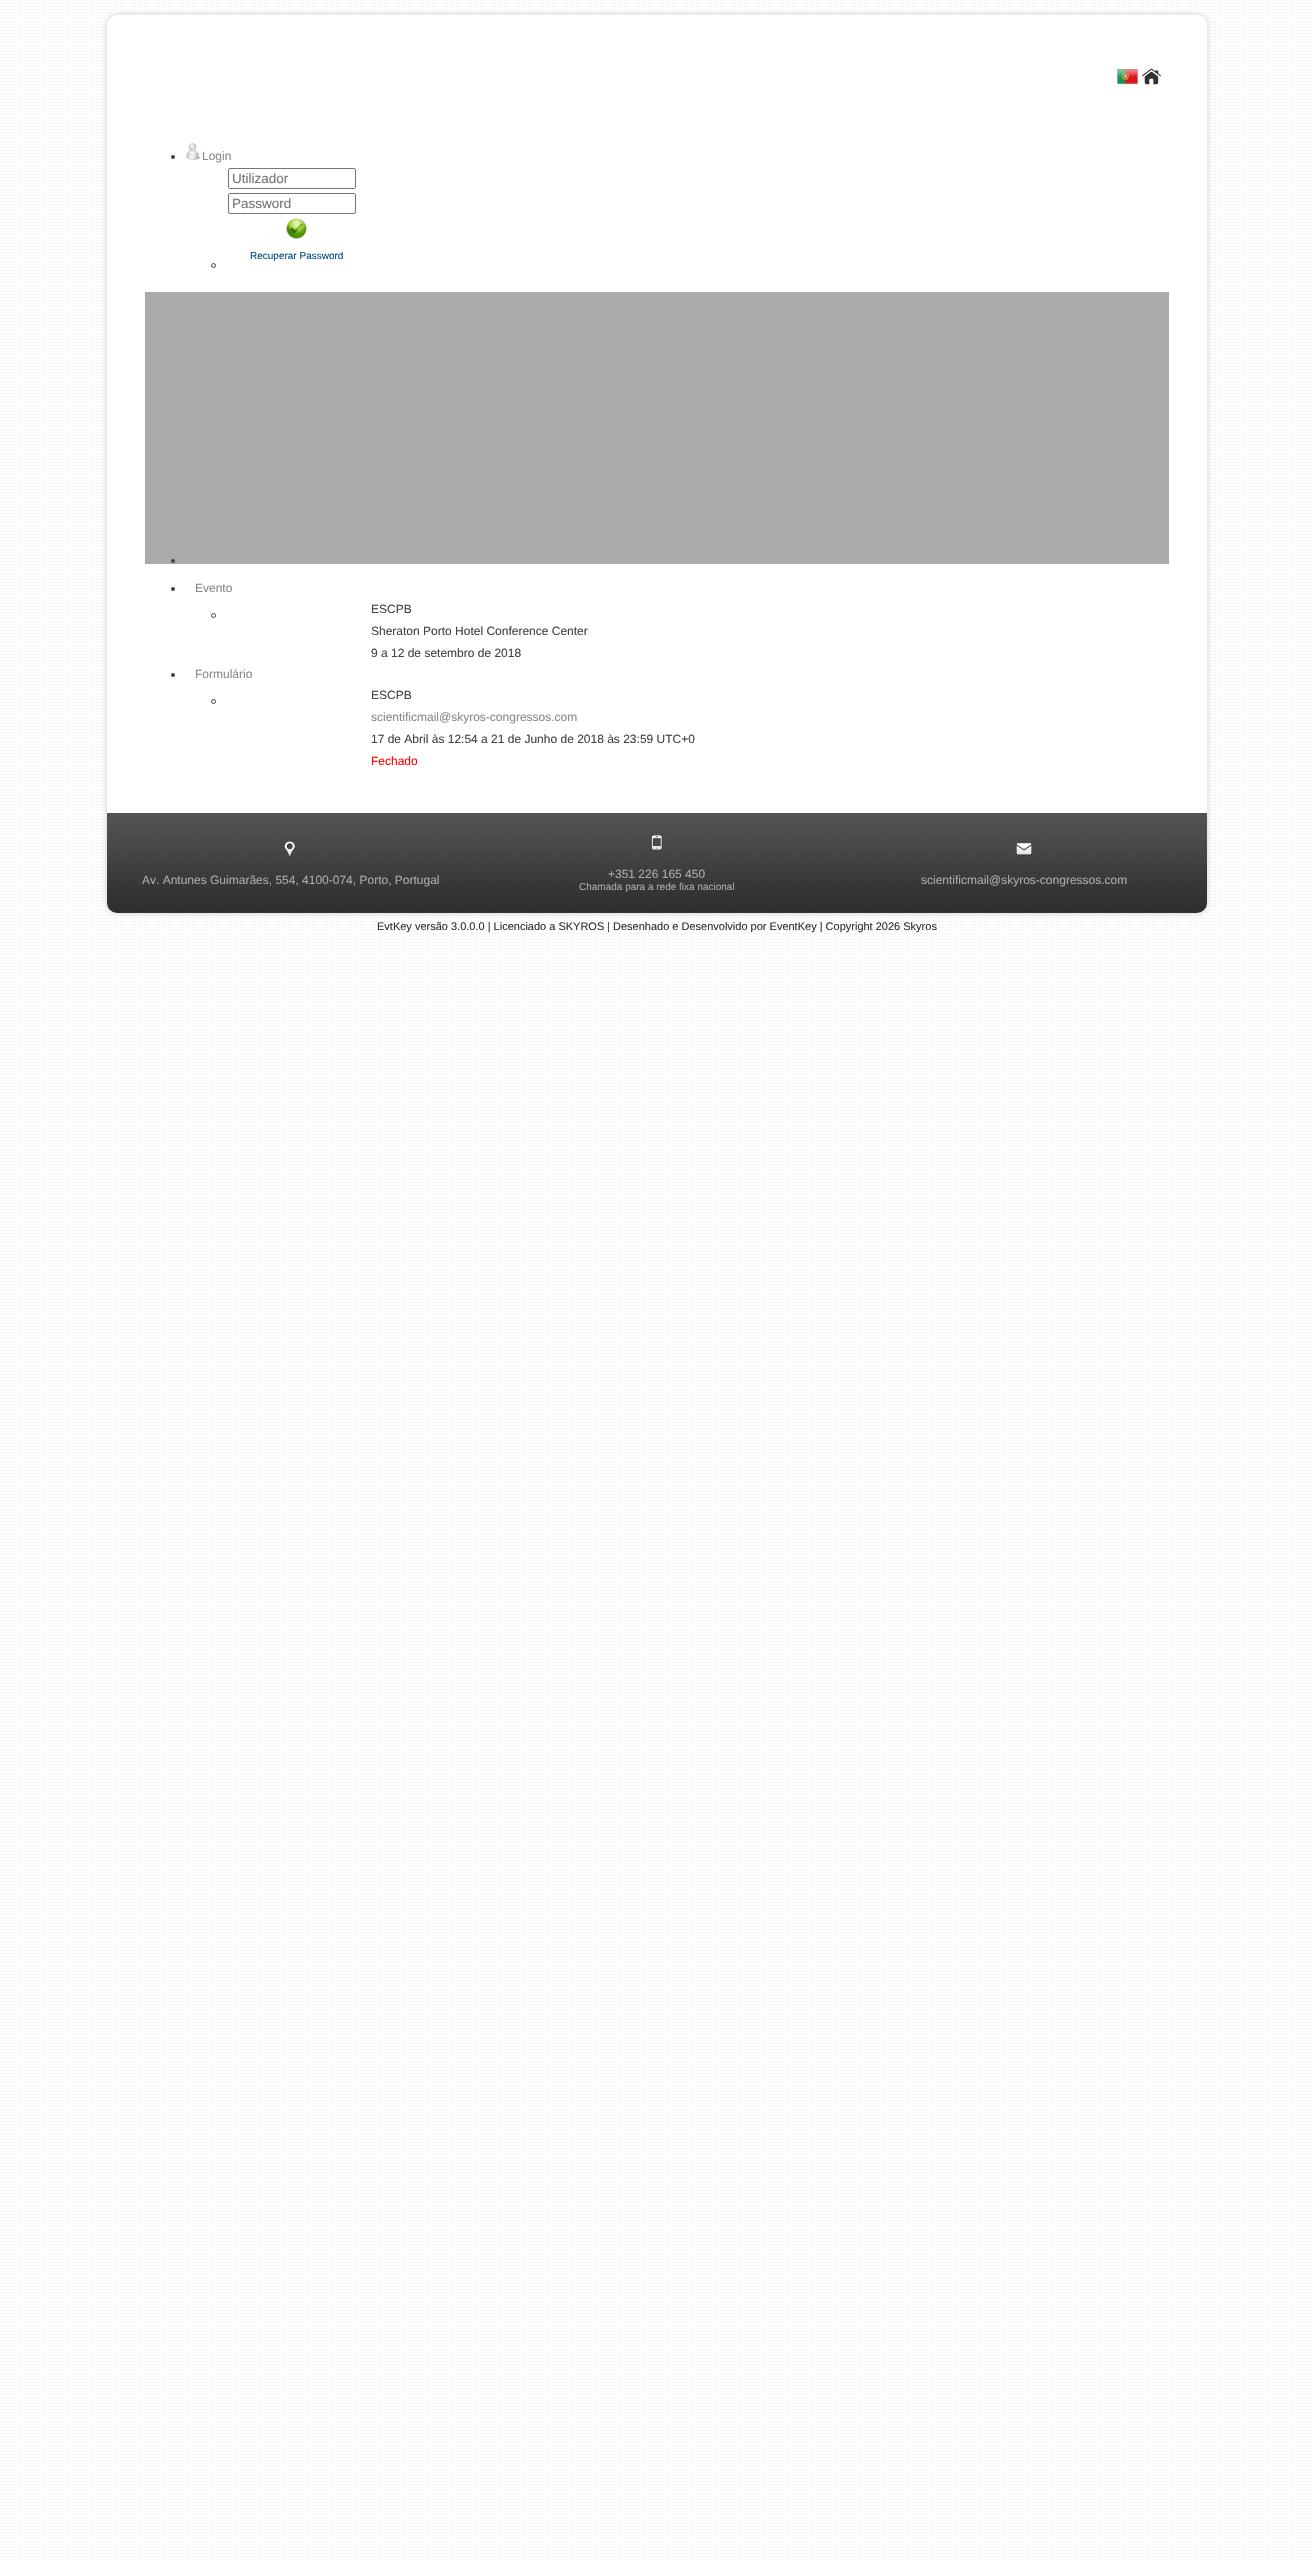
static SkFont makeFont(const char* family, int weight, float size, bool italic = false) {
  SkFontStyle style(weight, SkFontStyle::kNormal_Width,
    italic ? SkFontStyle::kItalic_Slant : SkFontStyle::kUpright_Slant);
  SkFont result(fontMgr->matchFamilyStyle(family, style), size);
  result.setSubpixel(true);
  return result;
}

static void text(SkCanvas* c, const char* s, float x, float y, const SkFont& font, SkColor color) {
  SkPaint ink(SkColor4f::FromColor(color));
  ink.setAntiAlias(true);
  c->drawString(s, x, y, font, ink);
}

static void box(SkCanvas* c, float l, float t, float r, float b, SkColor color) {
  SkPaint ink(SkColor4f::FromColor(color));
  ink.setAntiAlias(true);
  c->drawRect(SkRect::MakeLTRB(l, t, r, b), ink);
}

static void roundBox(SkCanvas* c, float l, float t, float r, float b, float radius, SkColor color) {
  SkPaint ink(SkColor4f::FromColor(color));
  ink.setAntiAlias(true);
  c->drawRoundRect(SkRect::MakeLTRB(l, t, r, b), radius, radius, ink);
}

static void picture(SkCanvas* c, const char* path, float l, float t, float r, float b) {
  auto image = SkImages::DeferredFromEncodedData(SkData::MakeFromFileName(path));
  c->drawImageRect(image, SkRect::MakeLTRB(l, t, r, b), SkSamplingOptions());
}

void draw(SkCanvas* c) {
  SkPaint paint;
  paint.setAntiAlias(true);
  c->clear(0xffffffff);
  picture(c, "img_01.png", 0, 0, 1314, 2562);
  paint.setColor(0x33000000);
  paint.setMaskFilter(SkMaskFilter::MakeBlur(kNormal_SkBlurStyle, 3));
  c->drawRoundRect(SkRect::MakeLTRB(107, 15, 1207, 913), 10, 10, paint);
  paint.setMaskFilter(nullptr);
  roundBox(c, 107, 15, 1207, 913, 10, 0xffffffff);
  picture(c, "img_02.png", 1117, 69, 1138, 85);
  picture(c, "img_03.png", 1142, 68, 1161, 85);
  paint.setColor(0xff424242);
  c->drawCircle(173, 157, 2, paint);
  picture(c, "img_04.png", 186, 143, 201, 160);
  SkFont face1 = makeFont("Liberation Sans", 400, 12);
  text(c, "Login", 202, 160, face1, 0xff888888);
  paint.setStyle(SkPaint::kStroke_Style);
  paint.setStrokeWidth(1);
  paint.setColor(0xff767676);
  c->drawRoundRect(SkRect::MakeLTRB(228.5f, 168.5f, 355.5f, 188.5f), 1.5f, 1.5f, paint);
  SkFont face2 = makeFont("Liberation Sans", 400, 13.5f);
  text(c, "Utilizador", 232, 183, face2, 0xff757575);
  c->drawRoundRect(SkRect::MakeLTRB(228.5f, 193.5f, 355.5f, 213.5f), 1.5f, 1.5f, paint);
  text(c, "Password", 232, 208, face2, 0xff757575);
  picture(c, "img_05.png", 286, 218, 307, 239);
  SkFont face3 = makeFont("Liberation Sans", 400, 10);
  text(c, "Recuperar Password", 250, 259, face3, 0xff004d7e);
  paint.setColor(0xff424242);
  c->drawCircle(213.5f, 265.5f, 2, paint);
  box(c, 145, 292, 1169, 564, 0xffaaaaaa);
  paint.setStyle(SkPaint::kFill_Style);
  c->drawCircle(173, 561, 2, paint);
  c->drawCircle(173, 589, 2, paint);
  text(c, "Evento", 195, 592, face1, 0xff888888);
  paint.setStyle(SkPaint::kStroke_Style);
  c->drawCircle(213.5f, 615.5f, 2, paint);
  text(c, "ESCPB", 371, 613, face1, 0xff424242);
  text(c, "Sheraton Porto Hotel Conference Center", 371, 635, face1, 0xff424242);
  text(c, "9 a 12 de setembro de 2018", 371, 657, face1, 0xff424242);
  paint.setStyle(SkPaint::kFill_Style);
  c->drawCircle(173, 675, 2, paint);
  text(c, "Formulário", 195, 678, face1, 0xff888888);
  paint.setStyle(SkPaint::kStroke_Style);
  c->drawCircle(213.5f, 701.5f, 2, paint);
  text(c, "ESCPB", 371, 699, face1, 0xff424242);
  text(c, "scientificmail@skyros-congressos.com", 371, 721, face1, 0xff888888);
  text(c, "17 de Abril às 12:54 a 21 de Junho de 2018 às 23:59 UTC+0", 371, 743, face1, 0xff424242);
  text(c, "Fechado", 371, 765, face1, 0xffff0000);
  picture(c, "img_06.png", 107, 813, 474, 913);
  picture(c, "img_07.png", 284, 841, 296, 857);
  text(c, "Av. Antunes Guimarães, 554, 4100-074, Porto, Portugal", 142, 884, face1, 0xffaaaaaa);
  picture(c, "img_08.png", 474, 813, 840, 913);
  picture(c, "img_09.png", 651, 835, 663, 851);
  text(c, "+351 226 165 450", 608, 878, face1, 0xffaaaaaa);
  text(c, "Chamada para a rede fixa nacional", 579, 890, face3, 0xffaaaaaa);
  picture(c, "img_10.png", 840, 813, 1207, 913);
  picture(c, "img_11.png", 1016, 843, 1033, 856);
  text(c, "scientificmail@skyros-congressos.com", 921, 884, face1, 0xffaaaaaa);
  SkFont face4 = makeFont("Liberation Sans", 400, 11);
  text(c, "EvtKey versão 3.0.0.0 | Licenciado a SKYROS", 377, 930, face4, 0xff303030);
  text(c, "|", 607, 930, face4, 0xff424242);
  text(c, "Desenhado e Desenvolvido por EventKey | Copyright 2026 Skyros", 613, 930, face4, 0xff303030);
}
